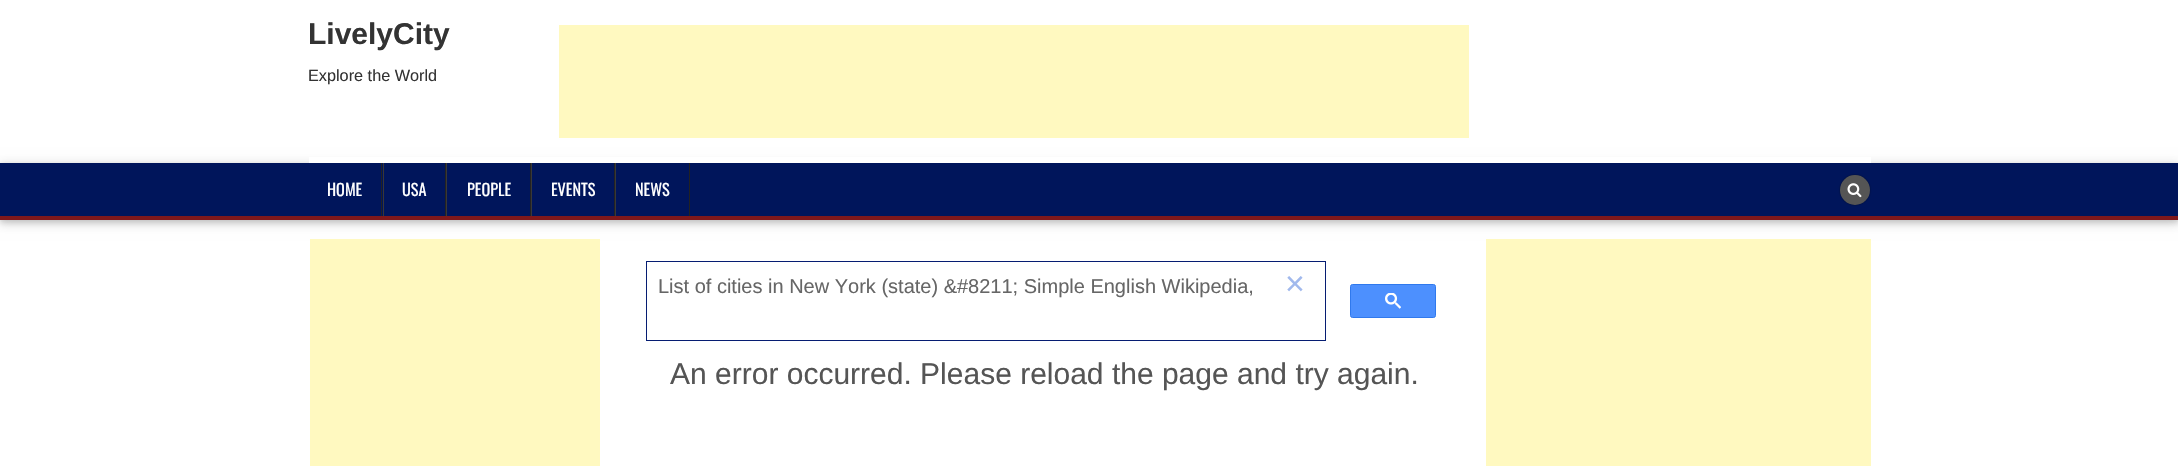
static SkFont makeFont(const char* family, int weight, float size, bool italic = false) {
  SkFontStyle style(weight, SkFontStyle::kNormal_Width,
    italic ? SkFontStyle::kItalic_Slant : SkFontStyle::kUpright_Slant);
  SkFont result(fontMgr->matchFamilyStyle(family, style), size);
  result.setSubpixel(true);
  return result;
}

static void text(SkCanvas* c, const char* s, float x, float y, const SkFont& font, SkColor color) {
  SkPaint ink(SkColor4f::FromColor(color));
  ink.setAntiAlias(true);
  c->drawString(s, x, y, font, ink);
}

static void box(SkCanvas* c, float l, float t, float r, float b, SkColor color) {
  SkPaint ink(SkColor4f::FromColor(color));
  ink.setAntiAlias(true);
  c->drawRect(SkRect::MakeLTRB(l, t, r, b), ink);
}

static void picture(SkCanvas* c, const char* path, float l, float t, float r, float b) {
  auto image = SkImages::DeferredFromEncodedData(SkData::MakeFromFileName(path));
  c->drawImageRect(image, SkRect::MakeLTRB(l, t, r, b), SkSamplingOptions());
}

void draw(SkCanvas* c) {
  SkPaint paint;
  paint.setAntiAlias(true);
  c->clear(0xffffffff);
  paint.setColor(0x1f000000);
  paint.setMaskFilter(SkMaskFilter::MakeBlur(kNormal_SkBlurStyle, 6));
  c->drawRect(SkRect::MakeLTRB(0, 165, 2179, 223), paint);
  paint.setMaskFilter(nullptr);
  paint.setColor(0x29000000);
  paint.setMaskFilter(SkMaskFilter::MakeBlur(kNormal_SkBlurStyle, 3));
  c->drawRect(SkRect::MakeLTRB(0, 165, 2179, 223), paint);
  paint.setMaskFilter(nullptr);
  box(c, 309, 157, 1871, 163, 0xffffffff);
  SkFont face1 = makeFont("Liberation Sans", 700, 30);
  text(c, "LivelyCity", 308, 44, face1, 0xff333333);
  SkFont face2 = makeFont("Liberation Sans", 400, 16.25f);
  text(c, "Explore the World", 308, 81, face2, 0xff333333);
  box(c, 559, 25, 1469, 138, 0xfffff9c0);
  box(c, 0, 163, 2178, 216, 0xff00155b);
  box(c, 0, 216, 2178, 220, 0xff7f181b);
  box(c, 381, 163, 382, 216, 0xff222222);
  SkFont face3 = makeFont("Oswald", 400, 16.25f);
  text(c, "HOME", 327, 196, face3, 0xffffffff);
  box(c, 445, 163, 446, 216, 0xff222222);
  box(c, 383, 163, 384, 216, 0xff383838);
  text(c, "USA", 402, 196, face3, 0xffffffff);
  box(c, 530, 163, 531, 216, 0xff222222);
  box(c, 446, 163, 447, 216, 0xff383838);
  text(c, "PEOPLE", 467, 196, face3, 0xffffffff);
  box(c, 614, 163, 615, 216, 0xff222222);
  box(c, 531, 163, 532, 216, 0xff383838);
  text(c, "EVENTS", 551, 196, face3, 0xffffffff);
  box(c, 689, 163, 690, 216, 0xff222222);
  box(c, 615, 163, 616, 216, 0xff383838);
  text(c, "NEWS", 635, 196, face3, 0xffffffff);
  paint.setColor(0x80000000);
  paint.setMaskFilter(SkMaskFilter::MakeBlur(kNormal_SkBlurStyle, 1));
  c->drawRoundRect(SkRect::MakeLTRB(1840, 175, 1870, 205), 15, 15, paint);
  paint.setMaskFilter(nullptr);
  paint.setColor(0xff555555);
  c->drawCircle(1855, 190, 15, paint);
  picture(c, "img_01.png", 1847, 183, 1862, 198);
  box(c, 310, 239, 600, 466, 0xfffff9c0);
  paint.setStyle(SkPaint::kStroke_Style);
  paint.setStrokeWidth(1);
  paint.setColor(0xff061d72);
  c->drawRect(SkRect::MakeLTRB(646.5f, 261.5f, 1325.5f, 340.5f), paint);
  SkFont face4 = makeFont("Liberation Sans", 400, 20);
  text(c, "List of cities in New York (state) &#8211; Simple English Wikipedia,", 658, 293, face4, 0xff666666);
  SkFont face5 = makeFont("Liberation Sans", 400, 34);
  text(c, "×", 1285, 295, face5, 0xffa1b9ed);
  paint.setStyle(SkPaint::kFill_Style);
  paint.setColor(0xff4d90fe);
  c->drawRoundRect(SkRect::MakeLTRB(1350.5f, 284.5f, 1435.5f, 317.5f), 2, 2, paint);
  paint.setStyle(SkPaint::kStroke_Style);
  paint.setColor(0xff3079ed);
  c->drawRoundRect(SkRect::MakeLTRB(1350.5f, 284.5f, 1435.5f, 317.5f), 2, 2, paint);
  picture(c, "img_02.png", 1385, 293, 1401, 309);
  SkFont face6 = makeFont("Liberation Sans", 400, 30);
  text(c, "An error occurred. Please reload the page and try again.", 670, 384, face6, 0xff555555);
  box(c, 1486, 239, 1871, 466, 0xfffff9c0);
}
